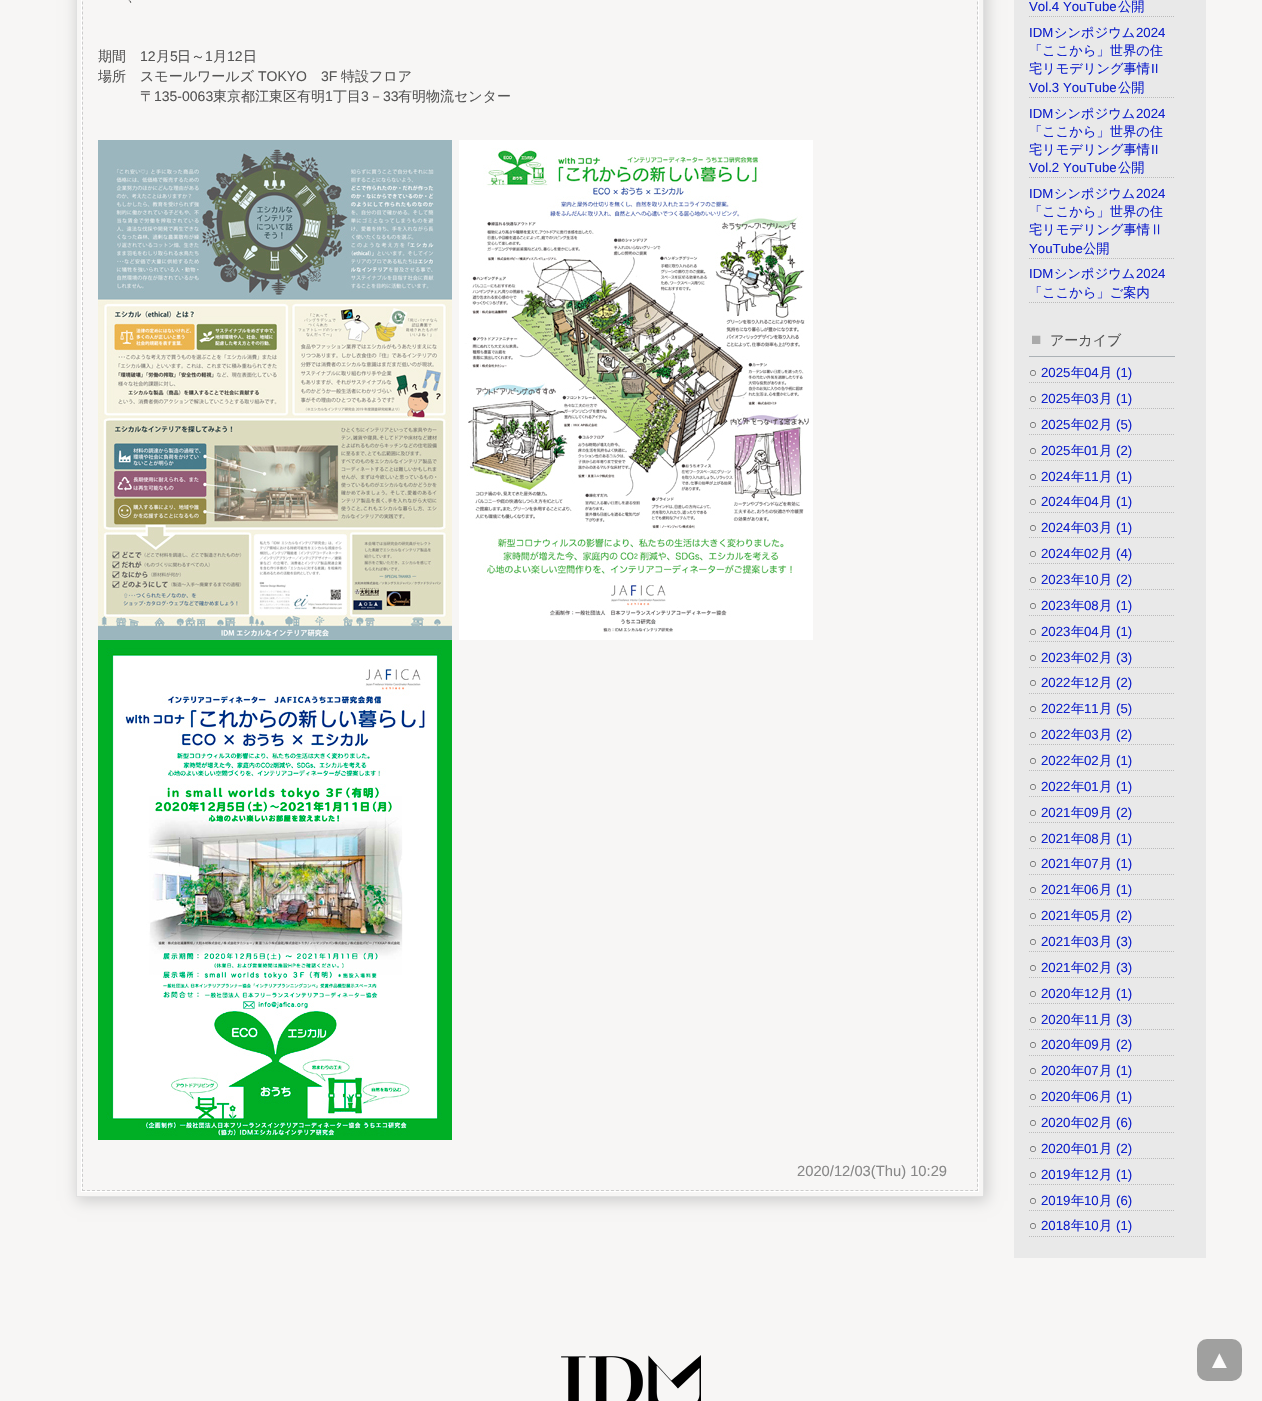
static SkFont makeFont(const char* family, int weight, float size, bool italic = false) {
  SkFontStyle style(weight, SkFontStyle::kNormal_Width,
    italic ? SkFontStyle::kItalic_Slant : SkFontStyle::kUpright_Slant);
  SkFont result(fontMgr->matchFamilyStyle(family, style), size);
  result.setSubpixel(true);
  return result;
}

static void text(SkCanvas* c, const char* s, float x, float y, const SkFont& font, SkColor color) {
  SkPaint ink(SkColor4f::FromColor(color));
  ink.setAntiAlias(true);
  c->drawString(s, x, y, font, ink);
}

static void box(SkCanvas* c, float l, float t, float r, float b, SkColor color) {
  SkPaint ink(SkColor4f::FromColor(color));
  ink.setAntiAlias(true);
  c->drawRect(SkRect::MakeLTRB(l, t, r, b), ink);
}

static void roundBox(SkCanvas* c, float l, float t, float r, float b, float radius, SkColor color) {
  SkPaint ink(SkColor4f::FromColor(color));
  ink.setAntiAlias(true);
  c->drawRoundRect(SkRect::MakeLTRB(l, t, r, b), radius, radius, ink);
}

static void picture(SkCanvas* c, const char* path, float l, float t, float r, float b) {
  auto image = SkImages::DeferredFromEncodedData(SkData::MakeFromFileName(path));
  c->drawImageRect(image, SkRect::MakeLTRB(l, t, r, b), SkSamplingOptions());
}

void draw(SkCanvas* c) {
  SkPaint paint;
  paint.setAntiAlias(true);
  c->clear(0xfff7f6f5);
  paint.setStyle(SkPaint::kStroke_Style);
  paint.setStrokeWidth(1);
  paint.setColor(0xffffffff);
  c->drawRect(SkRect::MakeLTRB(81.5f, -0.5f, 978.5f, 1191.5f), paint);
  paint.setColor(0xffcccccc);
  paint.setPathEffect(SkDashPathEffect::Make({{3, 2.01f}}, 0));
  c->drawPath(SkPathBuilder().moveTo(977.5f, -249).lineTo(977.5f, 1191).detach(), paint);
  paint.setPathEffect(nullptr);
  paint.setPathEffect(SkDashPathEffect::Make({{3, 1.99f}}, 0));
  c->drawPath(SkPathBuilder().moveTo(82, 1190.5f).lineTo(978, 1190.5f).detach(), paint);
  paint.setPathEffect(nullptr);
  paint.setPathEffect(SkDashPathEffect::Make({{3, 2.01f}}, 0));
  c->drawPath(SkPathBuilder().moveTo(82.5f, -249).lineTo(82.5f, 1191).detach(), paint);
  paint.setPathEffect(nullptr);
  c->save();
  c->clipPath(SkPathBuilder(SkPathFillType::kEvenOdd).moveTo(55, 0).lineTo(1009, 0).lineTo(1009, 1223).lineTo(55, 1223).close().moveTo(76, -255).lineTo(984, -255).lineTo(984, 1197).lineTo(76, 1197).close().detach(), true);
  paint.setStyle(SkPaint::kFill_Style);
  paint.setMaskFilter(SkMaskFilter::MakeBlur(kNormal_SkBlurStyle, 7));
  c->drawRect(SkRect::MakeLTRB(77, -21, 987, 1201), paint);
  paint.setMaskFilter(nullptr);
  c->restore();
  paint.setStyle(SkPaint::kStroke_Style);
  paint.setColor(0xffe0e0e0);
  c->drawRect(SkRect::MakeLTRB(76.5f, -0.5f, 983.5f, 1196.5f), paint);
  SkFont face1 = makeFont("WenQuanYi Zen Hei", 500, 14);
  text(c, "、", 127, 1, face1, 0xff555555);
  text(c, "期間", 98, 61, face1, 0xff555555);
  SkFont face2 = makeFont("Liberation Sans", 400, 14);
  text(c, "12", 140, 61, face2, 0xff555555);
  text(c, "月", 156, 61, face1, 0xff555555);
  text(c, "5", 170, 61, face2, 0xff555555);
  text(c, "日～", 177, 61, face1, 0xff555555);
  text(c, "1", 205, 61, face2, 0xff555555);
  text(c, "月", 213, 61, face1, 0xff555555);
  text(c, "12", 227, 61, face2, 0xff555555);
  text(c, "日", 243, 61, face1, 0xff555555);
  text(c, "場所　スモールワールズ", 98, 81, face1, 0xff555555);
  text(c, "TOKYO", 258, 81, face2, 0xff555555);
  text(c, "3F", 321, 81, face2, 0xff555555);
  text(c, "特設フロア", 341, 81, face1, 0xff555555);
  text(c, "〒", 140, 101, face1, 0xff555555);
  text(c, "135-0063", 154, 101, face2, 0xff555555);
  text(c, "東京都江東区有明", 213, 101, face1, 0xff555555);
  text(c, "1", 325, 101, face2, 0xff555555);
  text(c, "丁目", 333, 101, face1, 0xff555555);
  text(c, "3", 361, 101, face2, 0xff555555);
  text(c, "－", 369, 101, face1, 0xff555555);
  text(c, "33", 383, 101, face2, 0xff555555);
  text(c, "有明物流センター", 398, 101, face1, 0xff555555);
  picture(c, "img_01.png", 98, 140, 452, 640);
  picture(c, "img_02.png", 459, 140, 813, 640);
  picture(c, "img_03.png", 98, 640, 452, 1140);
  SkFont face3 = makeFont("Liberation Sans", 400, 14.75f);
  text(c, "2020/12/03(Thu) 10:29", 797, 1176, face3, 0xff888888);
  box(c, 1014, 0, 1206, 1258, 0xffe9e9e9);
  paint.setColor(0xffbbbbbb);
  paint.setPathEffect(SkDashPathEffect::Make({{1, 1}}, 0));
  c->drawPath(SkPathBuilder().moveTo(1029, 16.5f).lineTo(1175, 16.5f).detach(), paint);
  paint.setPathEffect(nullptr);
  SkFont face4 = makeFont("Liberation Sans", 400, 13.25f);
  text(c, "Vol.4 YouTube", 1029, 11, face4, 0xff1122cc);
  SkFont face5 = makeFont("WenQuanYi Zen Hei", 500, 13.25f);
  text(c, "公開", 1118, 11, face5, 0xff1122cc);
  paint.setPathEffect(SkDashPathEffect::Make({{1, 1}}, 0));
  c->drawPath(SkPathBuilder().moveTo(1029, 97.5f).lineTo(1175, 97.5f).detach(), paint);
  paint.setPathEffect(nullptr);
  text(c, "IDM", 1029, 37, face4, 0xff1122cc);
  text(c, "シンポジウム", 1054, 37, face5, 0xff1122cc);
  text(c, "2024", 1136, 37, face4, 0xff1122cc);
  text(c, "「ここから」世界の住", 1029, 55, face5, 0xff1122cc);
  text(c, "宅リモデリング事情", 1029, 73, face5, 0xff1122cc);
  text(c, "II", 1151, 73, face4, 0xff1122cc);
  text(c, "Vol.3 YouTube", 1029, 92, face4, 0xff1122cc);
  text(c, "公開", 1118, 92, face5, 0xff1122cc);
  paint.setPathEffect(SkDashPathEffect::Make({{1, 1}}, 0));
  c->drawPath(SkPathBuilder().moveTo(1029, 177.5f).lineTo(1175, 177.5f).detach(), paint);
  paint.setPathEffect(nullptr);
  text(c, "IDM", 1029, 118, face4, 0xff1122cc);
  text(c, "シンポジウム", 1054, 118, face5, 0xff1122cc);
  text(c, "2024", 1136, 118, face4, 0xff1122cc);
  text(c, "「ここから」世界の住", 1029, 136, face5, 0xff1122cc);
  text(c, "宅リモデリング事情", 1029, 154, face5, 0xff1122cc);
  text(c, "II", 1151, 154, face4, 0xff1122cc);
  text(c, "Vol.2 YouTube", 1029, 172, face4, 0xff1122cc);
  text(c, "公開", 1118, 172, face5, 0xff1122cc);
  paint.setPathEffect(SkDashPathEffect::Make({{1, 1}}, 0));
  c->drawPath(SkPathBuilder().moveTo(1029, 258.5f).lineTo(1175, 258.5f).detach(), paint);
  paint.setPathEffect(nullptr);
  text(c, "IDM", 1029, 198, face4, 0xff1122cc);
  text(c, "シンポジウム", 1054, 198, face5, 0xff1122cc);
  text(c, "2024", 1136, 198, face4, 0xff1122cc);
  text(c, "「ここから」世界の住", 1029, 216, face5, 0xff1122cc);
  text(c, "宅リモデリング事情Ⅱ", 1029, 234, face5, 0xff1122cc);
  text(c, "YouTube", 1029, 253, face4, 0xff1122cc);
  text(c, "公開", 1083, 253, face5, 0xff1122cc);
  paint.setPathEffect(SkDashPathEffect::Make({{1, 1}}, 0));
  c->drawPath(SkPathBuilder().moveTo(1029, 302.5f).lineTo(1175, 302.5f).detach(), paint);
  paint.setPathEffect(nullptr);
  text(c, "IDM", 1029, 278, face4, 0xff1122cc);
  text(c, "シンポジウム", 1054, 278, face5, 0xff1122cc);
  text(c, "2024", 1136, 278, face4, 0xff1122cc);
  text(c, "「ここから」ご案内", 1029, 297, face5, 0xff1122cc);
  box(c, 1029, 356, 1175, 357, 0xffabb1b5);
  SkFont face6 = makeFont("Liberation Sans", 400, 17);
  text(c, "■", 1031, 345, face6, 0xffaaaaaa);
  text(c, "アーカイブ", 1050, 345, face1, 0xff555555);
  paint.setPathEffect(SkDashPathEffect::Make({{1, 1}}, 0));
  c->drawPath(SkPathBuilder().moveTo(1029, 382.5f).lineTo(1175, 382.5f).detach(), paint);
  paint.setPathEffect(nullptr);
  text(c, "○", 1029, 377, face4, 0xff555555);
  text(c, "2025", 1041, 377, face4, 0xff1122cc);
  text(c, "年", 1071, 377, face5, 0xff1122cc);
  text(c, "04", 1084, 377, face4, 0xff1122cc);
  text(c, "月", 1099, 377, face5, 0xff1122cc);
  text(c, "(1)", 1116, 377, face4, 0xff1122cc);
  paint.setPathEffect(SkDashPathEffect::Make({{1, 1}}, 0));
  c->drawPath(SkPathBuilder().moveTo(1029, 408.5f).lineTo(1175, 408.5f).detach(), paint);
  paint.setPathEffect(nullptr);
  text(c, "○", 1029, 403, face4, 0xff555555);
  text(c, "2025", 1041, 403, face4, 0xff1122cc);
  text(c, "年", 1071, 403, face5, 0xff1122cc);
  text(c, "03", 1084, 403, face4, 0xff1122cc);
  text(c, "月", 1099, 403, face5, 0xff1122cc);
  text(c, "(1)", 1116, 403, face4, 0xff1122cc);
  paint.setPathEffect(SkDashPathEffect::Make({{1, 1}}, 0));
  c->drawPath(SkPathBuilder().moveTo(1029, 434.5f).lineTo(1175, 434.5f).detach(), paint);
  paint.setPathEffect(nullptr);
  text(c, "○", 1029, 429, face4, 0xff555555);
  text(c, "2025", 1041, 429, face4, 0xff1122cc);
  text(c, "年", 1071, 429, face5, 0xff1122cc);
  text(c, "02", 1084, 429, face4, 0xff1122cc);
  text(c, "月", 1099, 429, face5, 0xff1122cc);
  text(c, "(5)", 1116, 429, face4, 0xff1122cc);
  paint.setPathEffect(SkDashPathEffect::Make({{1, 1}}, 0));
  c->drawPath(SkPathBuilder().moveTo(1029, 460.5f).lineTo(1175, 460.5f).detach(), paint);
  paint.setPathEffect(nullptr);
  text(c, "○", 1029, 455, face4, 0xff555555);
  text(c, "2025", 1041, 455, face4, 0xff1122cc);
  text(c, "年", 1071, 455, face5, 0xff1122cc);
  text(c, "01", 1084, 455, face4, 0xff1122cc);
  text(c, "月", 1099, 455, face5, 0xff1122cc);
  text(c, "(2)", 1116, 455, face4, 0xff1122cc);
  paint.setPathEffect(SkDashPathEffect::Make({{1, 1}}, 0));
  c->drawPath(SkPathBuilder().moveTo(1029, 486.5f).lineTo(1175, 486.5f).detach(), paint);
  paint.setPathEffect(nullptr);
  text(c, "○", 1029, 481, face4, 0xff555555);
  text(c, "2024", 1041, 481, face4, 0xff1122cc);
  text(c, "年", 1071, 481, face5, 0xff1122cc);
  text(c, "11", 1084, 481, face4, 0xff1122cc);
  text(c, "月", 1099, 481, face5, 0xff1122cc);
  text(c, "(1)", 1116, 481, face4, 0xff1122cc);
  paint.setPathEffect(SkDashPathEffect::Make({{1, 1}}, 0));
  c->drawPath(SkPathBuilder().moveTo(1029, 512.5f).lineTo(1175, 512.5f).detach(), paint);
  paint.setPathEffect(nullptr);
  text(c, "○", 1029, 506, face4, 0xff555555);
  text(c, "2024", 1041, 506, face4, 0xff1122cc);
  text(c, "年", 1071, 506, face5, 0xff1122cc);
  text(c, "04", 1084, 506, face4, 0xff1122cc);
  text(c, "月", 1099, 506, face5, 0xff1122cc);
  text(c, "(1)", 1116, 506, face4, 0xff1122cc);
  paint.setPathEffect(SkDashPathEffect::Make({{1, 1}}, 0));
  c->drawPath(SkPathBuilder().moveTo(1029, 537.5f).lineTo(1175, 537.5f).detach(), paint);
  paint.setPathEffect(nullptr);
  text(c, "○", 1029, 532, face4, 0xff555555);
  text(c, "2024", 1041, 532, face4, 0xff1122cc);
  text(c, "年", 1071, 532, face5, 0xff1122cc);
  text(c, "03", 1084, 532, face4, 0xff1122cc);
  text(c, "月", 1099, 532, face5, 0xff1122cc);
  text(c, "(1)", 1116, 532, face4, 0xff1122cc);
  paint.setPathEffect(SkDashPathEffect::Make({{1, 1}}, 0));
  c->drawPath(SkPathBuilder().moveTo(1029, 563.5f).lineTo(1175, 563.5f).detach(), paint);
  paint.setPathEffect(nullptr);
  text(c, "○", 1029, 558, face4, 0xff555555);
  text(c, "2024", 1041, 558, face4, 0xff1122cc);
  text(c, "年", 1071, 558, face5, 0xff1122cc);
  text(c, "02", 1084, 558, face4, 0xff1122cc);
  text(c, "月", 1099, 558, face5, 0xff1122cc);
  text(c, "(4)", 1116, 558, face4, 0xff1122cc);
  paint.setPathEffect(SkDashPathEffect::Make({{1, 1}}, 0));
  c->drawPath(SkPathBuilder().moveTo(1029, 589.5f).lineTo(1175, 589.5f).detach(), paint);
  paint.setPathEffect(nullptr);
  text(c, "○", 1029, 584, face4, 0xff555555);
  text(c, "2023", 1041, 584, face4, 0xff1122cc);
  text(c, "年", 1071, 584, face5, 0xff1122cc);
  text(c, "10", 1084, 584, face4, 0xff1122cc);
  text(c, "月", 1099, 584, face5, 0xff1122cc);
  text(c, "(2)", 1116, 584, face4, 0xff1122cc);
  paint.setPathEffect(SkDashPathEffect::Make({{1, 1}}, 0));
  c->drawPath(SkPathBuilder().moveTo(1029, 615.5f).lineTo(1175, 615.5f).detach(), paint);
  paint.setPathEffect(nullptr);
  text(c, "○", 1029, 610, face4, 0xff555555);
  text(c, "2023", 1041, 610, face4, 0xff1122cc);
  text(c, "年", 1071, 610, face5, 0xff1122cc);
  text(c, "08", 1084, 610, face4, 0xff1122cc);
  text(c, "月", 1099, 610, face5, 0xff1122cc);
  text(c, "(1)", 1116, 610, face4, 0xff1122cc);
  paint.setPathEffect(SkDashPathEffect::Make({{1, 1}}, 0));
  c->drawPath(SkPathBuilder().moveTo(1029, 641.5f).lineTo(1175, 641.5f).detach(), paint);
  paint.setPathEffect(nullptr);
  text(c, "○", 1029, 636, face4, 0xff555555);
  text(c, "2023", 1041, 636, face4, 0xff1122cc);
  text(c, "年", 1071, 636, face5, 0xff1122cc);
  text(c, "04", 1084, 636, face4, 0xff1122cc);
  text(c, "月", 1099, 636, face5, 0xff1122cc);
  text(c, "(1)", 1116, 636, face4, 0xff1122cc);
  paint.setPathEffect(SkDashPathEffect::Make({{1, 1}}, 0));
  c->drawPath(SkPathBuilder().moveTo(1029, 667.5f).lineTo(1175, 667.5f).detach(), paint);
  paint.setPathEffect(nullptr);
  text(c, "○", 1029, 662, face4, 0xff555555);
  text(c, "2023", 1041, 662, face4, 0xff1122cc);
  text(c, "年", 1071, 662, face5, 0xff1122cc);
  text(c, "02", 1084, 662, face4, 0xff1122cc);
  text(c, "月", 1099, 662, face5, 0xff1122cc);
  text(c, "(3)", 1116, 662, face4, 0xff1122cc);
  paint.setPathEffect(SkDashPathEffect::Make({{1, 1}}, 0));
  c->drawPath(SkPathBuilder().moveTo(1029, 693.5f).lineTo(1175, 693.5f).detach(), paint);
  paint.setPathEffect(nullptr);
  text(c, "○", 1029, 687, face4, 0xff555555);
  text(c, "2022", 1041, 687, face4, 0xff1122cc);
  text(c, "年", 1071, 687, face5, 0xff1122cc);
  text(c, "12", 1084, 687, face4, 0xff1122cc);
  text(c, "月", 1099, 687, face5, 0xff1122cc);
  text(c, "(2)", 1116, 687, face4, 0xff1122cc);
  paint.setPathEffect(SkDashPathEffect::Make({{1, 1}}, 0));
  c->drawPath(SkPathBuilder().moveTo(1029, 718.5f).lineTo(1175, 718.5f).detach(), paint);
  paint.setPathEffect(nullptr);
  text(c, "○", 1029, 713, face4, 0xff555555);
  text(c, "2022", 1041, 713, face4, 0xff1122cc);
  text(c, "年", 1071, 713, face5, 0xff1122cc);
  text(c, "11", 1084, 713, face4, 0xff1122cc);
  text(c, "月", 1099, 713, face5, 0xff1122cc);
  text(c, "(5)", 1116, 713, face4, 0xff1122cc);
  paint.setPathEffect(SkDashPathEffect::Make({{1, 1}}, 0));
  c->drawPath(SkPathBuilder().moveTo(1029, 744.5f).lineTo(1175, 744.5f).detach(), paint);
  paint.setPathEffect(nullptr);
  text(c, "○", 1029, 739, face4, 0xff555555);
  text(c, "2022", 1041, 739, face4, 0xff1122cc);
  text(c, "年", 1071, 739, face5, 0xff1122cc);
  text(c, "03", 1084, 739, face4, 0xff1122cc);
  text(c, "月", 1099, 739, face5, 0xff1122cc);
  text(c, "(2)", 1116, 739, face4, 0xff1122cc);
  paint.setPathEffect(SkDashPathEffect::Make({{1, 1}}, 0));
  c->drawPath(SkPathBuilder().moveTo(1029, 770.5f).lineTo(1175, 770.5f).detach(), paint);
  paint.setPathEffect(nullptr);
  text(c, "○", 1029, 765, face4, 0xff555555);
  text(c, "2022", 1041, 765, face4, 0xff1122cc);
  text(c, "年", 1071, 765, face5, 0xff1122cc);
  text(c, "02", 1084, 765, face4, 0xff1122cc);
  text(c, "月", 1099, 765, face5, 0xff1122cc);
  text(c, "(1)", 1116, 765, face4, 0xff1122cc);
  paint.setPathEffect(SkDashPathEffect::Make({{1, 1}}, 0));
  c->drawPath(SkPathBuilder().moveTo(1029, 796.5f).lineTo(1175, 796.5f).detach(), paint);
  paint.setPathEffect(nullptr);
  text(c, "○", 1029, 791, face4, 0xff555555);
  text(c, "2022", 1041, 791, face4, 0xff1122cc);
  text(c, "年", 1071, 791, face5, 0xff1122cc);
  text(c, "01", 1084, 791, face4, 0xff1122cc);
  text(c, "月", 1099, 791, face5, 0xff1122cc);
  text(c, "(1)", 1116, 791, face4, 0xff1122cc);
  paint.setPathEffect(SkDashPathEffect::Make({{1, 1}}, 0));
  c->drawPath(SkPathBuilder().moveTo(1029, 822.5f).lineTo(1175, 822.5f).detach(), paint);
  paint.setPathEffect(nullptr);
  text(c, "○", 1029, 817, face4, 0xff555555);
  text(c, "2021", 1041, 817, face4, 0xff1122cc);
  text(c, "年", 1071, 817, face5, 0xff1122cc);
  text(c, "09", 1084, 817, face4, 0xff1122cc);
  text(c, "月", 1099, 817, face5, 0xff1122cc);
  text(c, "(2)", 1116, 817, face4, 0xff1122cc);
  paint.setPathEffect(SkDashPathEffect::Make({{1, 1}}, 0));
  c->drawPath(SkPathBuilder().moveTo(1029, 848.5f).lineTo(1175, 848.5f).detach(), paint);
  paint.setPathEffect(nullptr);
  text(c, "○", 1029, 843, face4, 0xff555555);
  text(c, "2021", 1041, 843, face4, 0xff1122cc);
  text(c, "年", 1071, 843, face5, 0xff1122cc);
  text(c, "08", 1084, 843, face4, 0xff1122cc);
  text(c, "月", 1099, 843, face5, 0xff1122cc);
  text(c, "(1)", 1116, 843, face4, 0xff1122cc);
  paint.setPathEffect(SkDashPathEffect::Make({{1, 1}}, 0));
  c->drawPath(SkPathBuilder().moveTo(1029, 874.5f).lineTo(1175, 874.5f).detach(), paint);
  paint.setPathEffect(nullptr);
  text(c, "○", 1029, 868, face4, 0xff555555);
  text(c, "2021", 1041, 868, face4, 0xff1122cc);
  text(c, "年", 1071, 868, face5, 0xff1122cc);
  text(c, "07", 1084, 868, face4, 0xff1122cc);
  text(c, "月", 1099, 868, face5, 0xff1122cc);
  text(c, "(1)", 1116, 868, face4, 0xff1122cc);
  paint.setPathEffect(SkDashPathEffect::Make({{1, 1}}, 0));
  c->drawPath(SkPathBuilder().moveTo(1029, 899.5f).lineTo(1175, 899.5f).detach(), paint);
  paint.setPathEffect(nullptr);
  text(c, "○", 1029, 894, face4, 0xff555555);
  text(c, "2021", 1041, 894, face4, 0xff1122cc);
  text(c, "年", 1071, 894, face5, 0xff1122cc);
  text(c, "06", 1084, 894, face4, 0xff1122cc);
  text(c, "月", 1099, 894, face5, 0xff1122cc);
  text(c, "(1)", 1116, 894, face4, 0xff1122cc);
  paint.setPathEffect(SkDashPathEffect::Make({{1, 1}}, 0));
  c->drawPath(SkPathBuilder().moveTo(1029, 925.5f).lineTo(1175, 925.5f).detach(), paint);
  paint.setPathEffect(nullptr);
  text(c, "○", 1029, 920, face4, 0xff555555);
  text(c, "2021", 1041, 920, face4, 0xff1122cc);
  text(c, "年", 1071, 920, face5, 0xff1122cc);
  text(c, "05", 1084, 920, face4, 0xff1122cc);
  text(c, "月", 1099, 920, face5, 0xff1122cc);
  text(c, "(2)", 1116, 920, face4, 0xff1122cc);
  paint.setPathEffect(SkDashPathEffect::Make({{1, 1}}, 0));
  c->drawPath(SkPathBuilder().moveTo(1029, 951.5f).lineTo(1175, 951.5f).detach(), paint);
  paint.setPathEffect(nullptr);
  text(c, "○", 1029, 946, face4, 0xff555555);
  text(c, "2021", 1041, 946, face4, 0xff1122cc);
  text(c, "年", 1071, 946, face5, 0xff1122cc);
  text(c, "03", 1084, 946, face4, 0xff1122cc);
  text(c, "月", 1099, 946, face5, 0xff1122cc);
  text(c, "(3)", 1116, 946, face4, 0xff1122cc);
  paint.setPathEffect(SkDashPathEffect::Make({{1, 1}}, 0));
  c->drawPath(SkPathBuilder().moveTo(1029, 977.5f).lineTo(1175, 977.5f).detach(), paint);
  paint.setPathEffect(nullptr);
  text(c, "○", 1029, 972, face4, 0xff555555);
  text(c, "2021", 1041, 972, face4, 0xff1122cc);
  text(c, "年", 1071, 972, face5, 0xff1122cc);
  text(c, "02", 1084, 972, face4, 0xff1122cc);
  text(c, "月", 1099, 972, face5, 0xff1122cc);
  text(c, "(3)", 1116, 972, face4, 0xff1122cc);
  paint.setPathEffect(SkDashPathEffect::Make({{1, 1}}, 0));
  c->drawPath(SkPathBuilder().moveTo(1029, 1003.5f).lineTo(1175, 1003.5f).detach(), paint);
  paint.setPathEffect(nullptr);
  text(c, "○", 1029, 998, face4, 0xff555555);
  text(c, "2020", 1041, 998, face4, 0xff1122cc);
  text(c, "年", 1071, 998, face5, 0xff1122cc);
  text(c, "12", 1084, 998, face4, 0xff1122cc);
  text(c, "月", 1099, 998, face5, 0xff1122cc);
  text(c, "(1)", 1116, 998, face4, 0xff1122cc);
  paint.setPathEffect(SkDashPathEffect::Make({{1, 1}}, 0));
  c->drawPath(SkPathBuilder().moveTo(1029, 1029.5f).lineTo(1175, 1029.5f).detach(), paint);
  paint.setPathEffect(nullptr);
  text(c, "○", 1029, 1024, face4, 0xff555555);
  text(c, "2020", 1041, 1024, face4, 0xff1122cc);
  text(c, "年", 1071, 1024, face5, 0xff1122cc);
  text(c, "11", 1084, 1024, face4, 0xff1122cc);
  text(c, "月", 1099, 1024, face5, 0xff1122cc);
  text(c, "(3)", 1116, 1024, face4, 0xff1122cc);
  paint.setPathEffect(SkDashPathEffect::Make({{1, 1}}, 0));
  c->drawPath(SkPathBuilder().moveTo(1029, 1055.5f).lineTo(1175, 1055.5f).detach(), paint);
  paint.setPathEffect(nullptr);
  text(c, "○", 1029, 1049, face4, 0xff555555);
  text(c, "2020", 1041, 1049, face4, 0xff1122cc);
  text(c, "年", 1071, 1049, face5, 0xff1122cc);
  text(c, "09", 1084, 1049, face4, 0xff1122cc);
  text(c, "月", 1099, 1049, face5, 0xff1122cc);
  text(c, "(2)", 1116, 1049, face4, 0xff1122cc);
  paint.setPathEffect(SkDashPathEffect::Make({{1, 1}}, 0));
  c->drawPath(SkPathBuilder().moveTo(1029, 1080.5f).lineTo(1175, 1080.5f).detach(), paint);
  paint.setPathEffect(nullptr);
  text(c, "○", 1029, 1075, face4, 0xff555555);
  text(c, "2020", 1041, 1075, face4, 0xff1122cc);
  text(c, "年", 1071, 1075, face5, 0xff1122cc);
  text(c, "07", 1084, 1075, face4, 0xff1122cc);
  text(c, "月", 1099, 1075, face5, 0xff1122cc);
  text(c, "(1)", 1116, 1075, face4, 0xff1122cc);
  paint.setPathEffect(SkDashPathEffect::Make({{1, 1}}, 0));
  c->drawPath(SkPathBuilder().moveTo(1029, 1106.5f).lineTo(1175, 1106.5f).detach(), paint);
  paint.setPathEffect(nullptr);
  text(c, "○", 1029, 1101, face4, 0xff555555);
  text(c, "2020", 1041, 1101, face4, 0xff1122cc);
  text(c, "年", 1071, 1101, face5, 0xff1122cc);
  text(c, "06", 1084, 1101, face4, 0xff1122cc);
  text(c, "月", 1099, 1101, face5, 0xff1122cc);
  text(c, "(1)", 1116, 1101, face4, 0xff1122cc);
  paint.setPathEffect(SkDashPathEffect::Make({{1, 1}}, 0));
  c->drawPath(SkPathBuilder().moveTo(1029, 1132.5f).lineTo(1175, 1132.5f).detach(), paint);
  paint.setPathEffect(nullptr);
  text(c, "○", 1029, 1127, face4, 0xff555555);
  text(c, "2020", 1041, 1127, face4, 0xff1122cc);
  text(c, "年", 1071, 1127, face5, 0xff1122cc);
  text(c, "02", 1084, 1127, face4, 0xff1122cc);
  text(c, "月", 1099, 1127, face5, 0xff1122cc);
  text(c, "(6)", 1116, 1127, face4, 0xff1122cc);
  paint.setPathEffect(SkDashPathEffect::Make({{1, 1}}, 0));
  c->drawPath(SkPathBuilder().moveTo(1029, 1158.5f).lineTo(1175, 1158.5f).detach(), paint);
  paint.setPathEffect(nullptr);
  text(c, "○", 1029, 1153, face4, 0xff555555);
  text(c, "2020", 1041, 1153, face4, 0xff1122cc);
  text(c, "年", 1071, 1153, face5, 0xff1122cc);
  text(c, "01", 1084, 1153, face4, 0xff1122cc);
  text(c, "月", 1099, 1153, face5, 0xff1122cc);
  text(c, "(2)", 1116, 1153, face4, 0xff1122cc);
  paint.setPathEffect(SkDashPathEffect::Make({{1, 1}}, 0));
  c->drawPath(SkPathBuilder().moveTo(1029, 1184.5f).lineTo(1175, 1184.5f).detach(), paint);
  paint.setPathEffect(nullptr);
  text(c, "○", 1029, 1179, face4, 0xff555555);
  text(c, "2019", 1041, 1179, face4, 0xff1122cc);
  text(c, "年", 1071, 1179, face5, 0xff1122cc);
  text(c, "12", 1084, 1179, face4, 0xff1122cc);
  text(c, "月", 1099, 1179, face5, 0xff1122cc);
  text(c, "(1)", 1116, 1179, face4, 0xff1122cc);
  paint.setPathEffect(SkDashPathEffect::Make({{1, 1}}, 0));
  c->drawPath(SkPathBuilder().moveTo(1029, 1210.5f).lineTo(1175, 1210.5f).detach(), paint);
  paint.setPathEffect(nullptr);
  text(c, "○", 1029, 1205, face4, 0xff555555);
  text(c, "2019", 1041, 1205, face4, 0xff1122cc);
  text(c, "年", 1071, 1205, face5, 0xff1122cc);
  text(c, "10", 1084, 1205, face4, 0xff1122cc);
  text(c, "月", 1099, 1205, face5, 0xff1122cc);
  text(c, "(6)", 1116, 1205, face4, 0xff1122cc);
  paint.setPathEffect(SkDashPathEffect::Make({{1, 1}}, 0));
  c->drawPath(SkPathBuilder().moveTo(1029, 1236.5f).lineTo(1175, 1236.5f).detach(), paint);
  paint.setPathEffect(nullptr);
  text(c, "○", 1029, 1230, face4, 0xff555555);
  text(c, "2018", 1041, 1230, face4, 0xff1122cc);
  text(c, "年", 1071, 1230, face5, 0xff1122cc);
  text(c, "10", 1084, 1230, face4, 0xff1122cc);
  text(c, "月", 1099, 1230, face5, 0xff1122cc);
  text(c, "(1)", 1116, 1230, face4, 0xff1122cc);
  picture(c, "img_04.png", 561, 1355, 701, 1401);
  roundBox(c, 1197, 1339, 1242, 1381, 10, 0xffa0a09f);
  SkFont face7 = makeFont("Liberation Sans", 700, 25);
  text(c, "▲", 1207, 1368, face7, 0xfffcfbfb);
}
